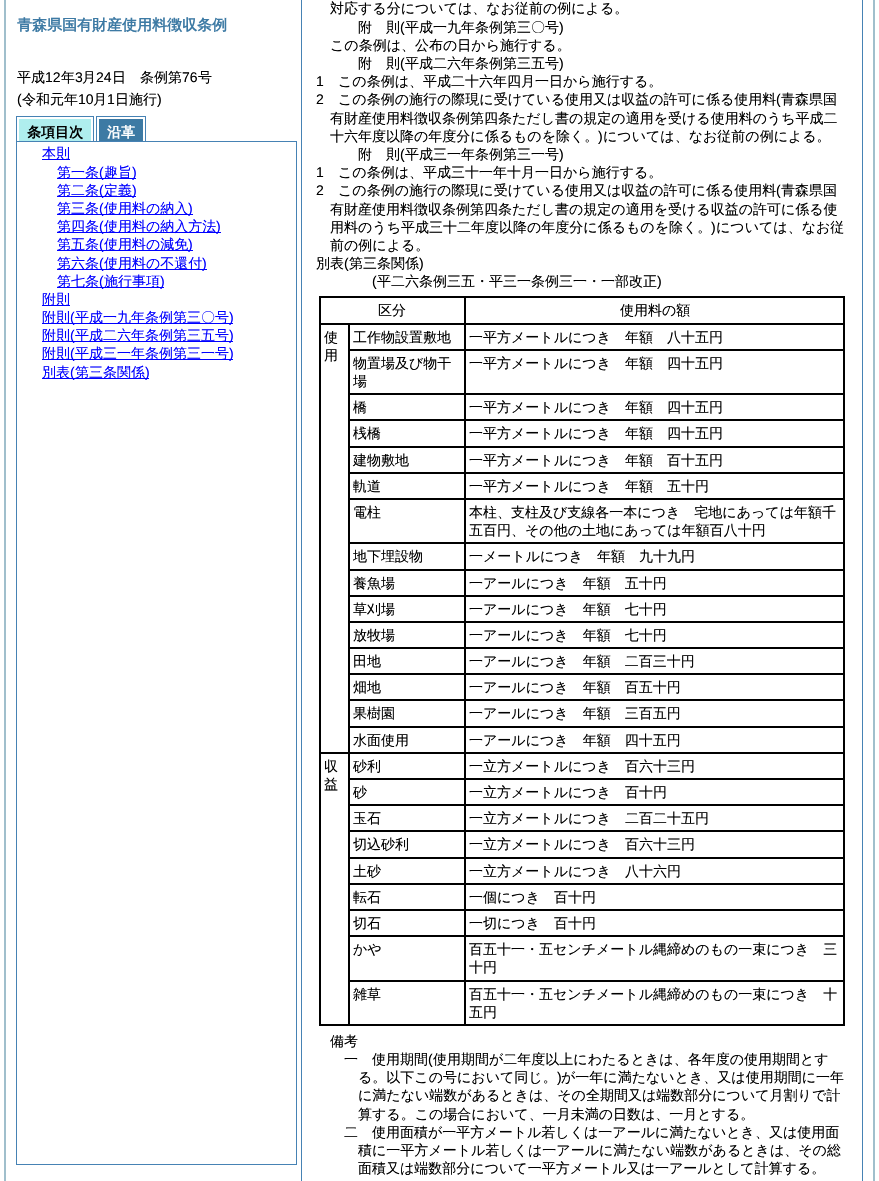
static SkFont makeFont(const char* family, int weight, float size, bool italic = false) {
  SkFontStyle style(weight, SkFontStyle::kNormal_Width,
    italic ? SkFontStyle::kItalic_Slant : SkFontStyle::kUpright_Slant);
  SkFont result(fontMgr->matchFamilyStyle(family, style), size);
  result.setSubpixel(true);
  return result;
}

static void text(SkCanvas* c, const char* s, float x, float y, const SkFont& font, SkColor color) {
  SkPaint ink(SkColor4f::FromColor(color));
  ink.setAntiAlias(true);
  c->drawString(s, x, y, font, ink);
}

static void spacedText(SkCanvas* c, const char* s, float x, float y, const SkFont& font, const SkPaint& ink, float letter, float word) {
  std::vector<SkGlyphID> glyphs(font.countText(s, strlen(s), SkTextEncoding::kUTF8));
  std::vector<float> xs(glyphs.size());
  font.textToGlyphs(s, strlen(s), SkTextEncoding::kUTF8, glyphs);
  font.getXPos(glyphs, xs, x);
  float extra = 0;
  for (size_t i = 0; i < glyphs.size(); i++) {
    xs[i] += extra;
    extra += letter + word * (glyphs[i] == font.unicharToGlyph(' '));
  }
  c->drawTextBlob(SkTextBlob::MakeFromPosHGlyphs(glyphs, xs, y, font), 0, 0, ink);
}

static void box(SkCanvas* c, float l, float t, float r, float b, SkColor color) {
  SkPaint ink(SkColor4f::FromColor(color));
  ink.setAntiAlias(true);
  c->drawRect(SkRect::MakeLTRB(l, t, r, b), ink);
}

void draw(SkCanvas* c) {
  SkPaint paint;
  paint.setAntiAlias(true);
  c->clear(0xffffffff);
  paint.setStyle(SkPaint::kStroke_Style);
  paint.setStrokeWidth(2);
  paint.setColor(0xffa0bfcc);
  c->drawRect(SkRect::MakeLTRB(5, -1, 874, 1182), paint);
  SkFont face1 = makeFont("WenQuanYi Zen Hei", 700, 15);
  text(c, "青森県国有財産使用料徴収条例", 17, 30, face1, 0xff3d7aa4);
  SkFont face2 = makeFont("WenQuanYi Zen Hei", 500, 14);
  text(c, "平成", 17, 82, face2, 0xff000000);
  SkFont face3 = makeFont("Liberation Sans", 400, 14);
  text(c, "12", 45, 82, face3, 0xff000000);
  text(c, "年", 61, 82, face2, 0xff000000);
  text(c, "3", 75, 82, face3, 0xff000000);
  text(c, "月", 82, 82, face2, 0xff000000);
  text(c, "24", 96, 82, face3, 0xff000000);
  text(c, "日　条例第", 112, 82, face2, 0xff000000);
  text(c, "76", 182, 82, face3, 0xff000000);
  text(c, "号", 198, 82, face2, 0xff000000);
  text(c, "(", 17, 104, face3, 0xff000000);
  text(c, "令和元年", 22, 104, face2, 0xff000000);
  text(c, "10", 78, 104, face3, 0xff000000);
  text(c, "月", 93, 104, face2, 0xff000000);
  text(c, "1", 107, 104, face3, 0xff000000);
  text(c, "日施行", 115, 104, face2, 0xff000000);
  text(c, ")", 157, 104, face3, 0xff000000);
  box(c, 16, 116, 94, 117, 0xff4682b4);
  box(c, 93, 116, 94, 142, 0xff4682b4);
  box(c, 16, 116, 17, 142, 0xff4682b4);
  box(c, 19, 119, 91, 141, 0xffafeeee);
  SkFont face4 = makeFont("WenQuanYi Zen Hei", 700, 14);
  text(c, "条項目次", 27, 137, face4, 0xff000000);
  box(c, 96, 116, 146, 117, 0xff4682b4);
  box(c, 145, 116, 146, 142, 0xff4682b4);
  box(c, 96, 116, 97, 142, 0xff4682b4);
  box(c, 99, 119, 143, 141, 0xff3d7aa4);
  text(c, "沿革", 107, 137, face4, 0xffffffff);
  paint.setStrokeWidth(1);
  paint.setColor(0xff4682b4);
  c->drawRect(SkRect::MakeLTRB(16.5f, 141.5f, 296.5f, 1164.5f), paint);
  box(c, 42, 159, 70, 160, 0xff0000ff);
  text(c, "本則", 42, 158, face2, 0xff0000ff);
  box(c, 57, 178, 136, 179, 0xff0000ff);
  text(c, "第一条", 57, 177, face2, 0xff0000ff);
  text(c, "(", 99, 177, face3, 0xff0000ff);
  text(c, "趣旨", 104, 177, face2, 0xff0000ff);
  text(c, ")", 132, 177, face3, 0xff0000ff);
  box(c, 57, 196, 136, 197, 0xff0000ff);
  text(c, "第二条", 57, 195, face2, 0xff0000ff);
  text(c, "(", 99, 195, face3, 0xff0000ff);
  text(c, "定義", 104, 195, face2, 0xff0000ff);
  text(c, ")", 132, 195, face3, 0xff0000ff);
  box(c, 57, 214, 193, 215, 0xff0000ff);
  text(c, "第三条", 57, 213, face2, 0xff0000ff);
  text(c, "(", 99, 213, face3, 0xff0000ff);
  text(c, "使用料の納入", 104, 213, face2, 0xff0000ff);
  text(c, ")", 188, 213, face3, 0xff0000ff);
  box(c, 57, 232, 221, 233, 0xff0000ff);
  text(c, "第四条", 57, 231, face2, 0xff0000ff);
  text(c, "(", 99, 231, face3, 0xff0000ff);
  text(c, "使用料の納入方法", 104, 231, face2, 0xff0000ff);
  text(c, ")", 216, 231, face3, 0xff0000ff);
  box(c, 57, 250, 193, 251, 0xff0000ff);
  text(c, "第五条", 57, 249, face2, 0xff0000ff);
  text(c, "(", 99, 249, face3, 0xff0000ff);
  text(c, "使用料の減免", 104, 249, face2, 0xff0000ff);
  text(c, ")", 188, 249, face3, 0xff0000ff);
  box(c, 57, 269, 207, 270, 0xff0000ff);
  text(c, "第六条", 57, 268, face2, 0xff0000ff);
  text(c, "(", 99, 268, face3, 0xff0000ff);
  text(c, "使用料の不還付", 104, 268, face2, 0xff0000ff);
  text(c, ")", 202, 268, face3, 0xff0000ff);
  box(c, 57, 287, 164, 288, 0xff0000ff);
  text(c, "第七条", 57, 286, face2, 0xff0000ff);
  text(c, "(", 99, 286, face3, 0xff0000ff);
  text(c, "施行事項", 104, 286, face2, 0xff0000ff);
  text(c, ")", 160, 286, face3, 0xff0000ff);
  box(c, 42, 305, 70, 306, 0xff0000ff);
  text(c, "附則", 42, 304, face2, 0xff0000ff);
  box(c, 42, 323, 233, 324, 0xff0000ff);
  text(c, "附則", 42, 322, face2, 0xff0000ff);
  text(c, "(", 70, 322, face3, 0xff0000ff);
  text(c, "平成一九年条例第三〇号", 75, 322, face2, 0xff0000ff);
  text(c, ")", 229, 322, face3, 0xff0000ff);
  box(c, 42, 341, 233, 342, 0xff0000ff);
  text(c, "附則", 42, 340, face2, 0xff0000ff);
  text(c, "(", 70, 340, face3, 0xff0000ff);
  text(c, "平成二六年条例第三五号", 75, 340, face2, 0xff0000ff);
  text(c, ")", 229, 340, face3, 0xff0000ff);
  box(c, 42, 359, 233, 360, 0xff0000ff);
  text(c, "附則", 42, 358, face2, 0xff0000ff);
  text(c, "(", 70, 358, face3, 0xff0000ff);
  text(c, "平成三一年条例第三一号", 75, 358, face2, 0xff0000ff);
  text(c, ")", 229, 358, face3, 0xff0000ff);
  box(c, 42, 378, 149, 379, 0xff0000ff);
  text(c, "別表", 42, 377, face2, 0xff0000ff);
  text(c, "(", 70, 377, face3, 0xff0000ff);
  text(c, "第三条関係", 75, 377, face2, 0xff0000ff);
  text(c, ")", 145, 377, face3, 0xff0000ff);
  c->drawRect(SkRect::MakeLTRB(301.5f, -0.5f, 862.5f, 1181.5f), paint);
  text(c, "対応する分については、なお従前の例による。", 330, 13, face2, 0xff000000);
  paint.setStyle(SkPaint::kFill_Style);
  paint.setColor(0xff000000);
  spacedText(c, "附", 358, 32, face2, paint, 14, 0);
  text(c, "則", 386, 32, face2, 0xff000000);
  text(c, "(", 400, 32, face3, 0xff000000);
  text(c, "平成一九年条例第三〇号", 405, 32, face2, 0xff000000);
  text(c, ")", 559, 32, face3, 0xff000000);
  text(c, "この条例は、公布の日から施行する。", 330, 50, face2, 0xff000000);
  spacedText(c, "附", 358, 68, face2, paint, 14, 0);
  text(c, "則", 386, 68, face2, 0xff000000);
  text(c, "(", 400, 68, face3, 0xff000000);
  text(c, "平成二六年条例第三五号", 405, 68, face2, 0xff000000);
  text(c, ")", 559, 68, face3, 0xff000000);
  text(c, "1", 316, 86, face3, 0xff000000);
  text(c, "この条例は、平成二十六年四月一日から施行する。", 338, 86, face2, 0xff000000);
  text(c, "2", 316, 104, face3, 0xff000000);
  text(c, "この条例の施行の際現に受けている使用又は収益の許可に係る使用料", 338, 104, face2, 0xff000000);
  text(c, "(", 776, 104, face3, 0xff000000);
  text(c, "青森県国", 781, 104, face2, 0xff000000);
  text(c, "有財産使用料徴収条例第四条ただし書の規定の適用を受ける使用料のうち平成二", 330, 123, face2, 0xff000000);
  text(c, "十六年度以降の年度分に係るものを除く。", 330, 141, face2, 0xff000000);
  text(c, ")", 598, 141, face3, 0xff000000);
  text(c, "については、なお従前の例による。", 603, 141, face2, 0xff000000);
  spacedText(c, "附", 358, 159, face2, paint, 14, 0);
  text(c, "則", 386, 159, face2, 0xff000000);
  text(c, "(", 400, 159, face3, 0xff000000);
  text(c, "平成三一年条例第三一号", 405, 159, face2, 0xff000000);
  text(c, ")", 559, 159, face3, 0xff000000);
  text(c, "1", 316, 177, face3, 0xff000000);
  text(c, "この条例は、平成三十一年十月一日から施行する。", 338, 177, face2, 0xff000000);
  text(c, "2", 316, 195, face3, 0xff000000);
  text(c, "この条例の施行の際現に受けている使用又は収益の許可に係る使用料", 338, 195, face2, 0xff000000);
  text(c, "(", 776, 195, face3, 0xff000000);
  text(c, "青森県国", 781, 195, face2, 0xff000000);
  text(c, "有財産使用料徴収条例第四条ただし書の規定の適用を受ける収益の許可に係る使", 330, 214, face2, 0xff000000);
  text(c, "用料のうち平成三十二年度以降の年度分に係るものを除く。", 330, 232, face2, 0xff000000);
  text(c, ")", 711, 232, face3, 0xff000000);
  text(c, "については、なお従", 716, 232, face2, 0xff000000);
  text(c, "前の例による。", 330, 250, face2, 0xff000000);
  text(c, "別表", 316, 268, face2, 0xff000000);
  text(c, "(", 344, 268, face3, 0xff000000);
  text(c, "第三条関係", 349, 268, face2, 0xff000000);
  text(c, ")", 419, 268, face3, 0xff000000);
  text(c, "(", 372, 286, face3, 0xff000000);
  text(c, "平二六条例三五・平三一条例三一・一部改正", 377, 286, face2, 0xff000000);
  text(c, ")", 657, 286, face3, 0xff000000);
  paint.setStyle(SkPaint::kStroke_Style);
  paint.setStrokeWidth(2);
  c->drawRect(SkRect::MakeLTRB(320, 297, 465, 324), paint);
  text(c, "区分", 378, 315, face2, 0xff000000);
  box(c, 466, 296, 845, 298, 0xff000000);
  box(c, 843, 296, 845, 1026, 0xff000000);
  box(c, 466, 323, 845, 325, 0xff000000);
  text(c, "使用料の額", 620, 315, face2, 0xff000000);
  box(c, 348, 325, 350, 1026, 0xff000000);
  box(c, 319, 752, 350, 754, 0xff000000);
  box(c, 319, 325, 321, 754, 0xff000000);
  text(c, "使", 324, 342, face2, 0xff000000);
  text(c, "用", 324, 360, face2, 0xff000000);
  box(c, 464, 325, 466, 1026, 0xff000000);
  box(c, 350, 349, 845, 351, 0xff000000);
  text(c, "工作物設置敷地", 353, 342, face2, 0xff000000);
  text(c, "一平方メートルにつき　年額　八十五円", 469, 342, face2, 0xff000000);
  box(c, 350, 393, 845, 395, 0xff000000);
  text(c, "物置場及び物干", 353, 368, face2, 0xff000000);
  text(c, "場", 353, 386, face2, 0xff000000);
  text(c, "一平方メートルにつき　年額　四十五円", 469, 368, face2, 0xff000000);
  box(c, 350, 419, 845, 421, 0xff000000);
  text(c, "橋", 353, 412, face2, 0xff000000);
  text(c, "一平方メートルにつき　年額　四十五円", 469, 412, face2, 0xff000000);
  box(c, 350, 446, 845, 448, 0xff000000);
  text(c, "桟橋", 353, 438, face2, 0xff000000);
  text(c, "一平方メートルにつき　年額　四十五円", 469, 438, face2, 0xff000000);
  box(c, 350, 472, 845, 474, 0xff000000);
  text(c, "建物敷地", 353, 465, face2, 0xff000000);
  text(c, "一平方メートルにつき　年額　百十五円", 469, 465, face2, 0xff000000);
  box(c, 350, 498, 845, 500, 0xff000000);
  text(c, "軌道", 353, 491, face2, 0xff000000);
  text(c, "一平方メートルにつき　年額　五十円", 469, 491, face2, 0xff000000);
  box(c, 350, 542, 845, 544, 0xff000000);
  text(c, "電柱", 353, 517, face2, 0xff000000);
  text(c, "本柱、支柱及び支線各一本につき　宅地にあっては年額千", 469, 517, face2, 0xff000000);
  text(c, "五百円、その他の土地にあっては年額百八十円", 469, 535, face2, 0xff000000);
  box(c, 350, 569, 845, 571, 0xff000000);
  text(c, "地下埋設物", 353, 561, face2, 0xff000000);
  text(c, "一メートルにつき　年額　九十九円", 469, 561, face2, 0xff000000);
  box(c, 350, 595, 845, 597, 0xff000000);
  text(c, "養魚場", 353, 588, face2, 0xff000000);
  text(c, "一アールにつき　年額　五十円", 469, 588, face2, 0xff000000);
  box(c, 350, 621, 845, 623, 0xff000000);
  text(c, "草刈場", 353, 614, face2, 0xff000000);
  text(c, "一アールにつき　年額　七十円", 469, 614, face2, 0xff000000);
  box(c, 350, 647, 845, 649, 0xff000000);
  text(c, "放牧場", 353, 640, face2, 0xff000000);
  text(c, "一アールにつき　年額　七十円", 469, 640, face2, 0xff000000);
  box(c, 350, 673, 845, 675, 0xff000000);
  text(c, "田地", 353, 666, face2, 0xff000000);
  text(c, "一アールにつき　年額　二百三十円", 469, 666, face2, 0xff000000);
  box(c, 350, 699, 845, 701, 0xff000000);
  text(c, "畑地", 353, 692, face2, 0xff000000);
  text(c, "一アールにつき　年額　百五十円", 469, 692, face2, 0xff000000);
  box(c, 350, 726, 845, 728, 0xff000000);
  text(c, "果樹園", 353, 718, face2, 0xff000000);
  text(c, "一アールにつき　年額　三百五円", 469, 718, face2, 0xff000000);
  box(c, 350, 752, 845, 754, 0xff000000);
  text(c, "水面使用", 353, 745, face2, 0xff000000);
  text(c, "一アールにつき　年額　四十五円", 469, 745, face2, 0xff000000);
  box(c, 319, 1024, 845, 1026, 0xff000000);
  box(c, 319, 754, 321, 1026, 0xff000000);
  text(c, "収", 324, 771, face2, 0xff000000);
  text(c, "益", 324, 789, face2, 0xff000000);
  box(c, 350, 778, 845, 780, 0xff000000);
  text(c, "砂利", 353, 771, face2, 0xff000000);
  text(c, "一立方メートルにつき　百六十三円", 469, 771, face2, 0xff000000);
  box(c, 350, 804, 845, 806, 0xff000000);
  text(c, "砂", 353, 797, face2, 0xff000000);
  text(c, "一立方メートルにつき　百十円", 469, 797, face2, 0xff000000);
  box(c, 350, 830, 845, 832, 0xff000000);
  text(c, "玉石", 353, 823, face2, 0xff000000);
  text(c, "一立方メートルにつき　二百二十五円", 469, 823, face2, 0xff000000);
  box(c, 350, 857, 845, 859, 0xff000000);
  text(c, "切込砂利", 353, 849, face2, 0xff000000);
  text(c, "一立方メートルにつき　百六十三円", 469, 849, face2, 0xff000000);
  box(c, 350, 883, 845, 885, 0xff000000);
  text(c, "土砂", 353, 876, face2, 0xff000000);
  text(c, "一立方メートルにつき　八十六円", 469, 876, face2, 0xff000000);
  box(c, 350, 909, 845, 911, 0xff000000);
  text(c, "転石", 353, 902, face2, 0xff000000);
  text(c, "一個につき　百十円", 469, 902, face2, 0xff000000);
  box(c, 350, 935, 845, 937, 0xff000000);
  text(c, "切石", 353, 928, face2, 0xff000000);
  text(c, "一切につき　百十円", 469, 928, face2, 0xff000000);
  box(c, 350, 980, 845, 982, 0xff000000);
  text(c, "かや", 353, 954, face2, 0xff000000);
  text(c, "百五十一・五センチメートル縄締めのもの一束につき　三", 469, 954, face2, 0xff000000);
  text(c, "十円", 469, 972, face2, 0xff000000);
  text(c, "雑草", 353, 999, face2, 0xff000000);
  text(c, "百五十一・五センチメートル縄締めのもの一束につき　十", 469, 999, face2, 0xff000000);
  text(c, "五円", 469, 1017, face2, 0xff000000);
  text(c, "備考", 330, 1046, face2, 0xff000000);
  text(c, "一　使用期間", 344, 1064, face2, 0xff000000);
  text(c, "(", 428, 1064, face3, 0xff000000);
  text(c, "使用期間が二年度以上にわたるときは、各年度の使用期間とす", 433, 1064, face2, 0xff000000);
  text(c, "る。以下この号において同じ。", 358, 1082, face2, 0xff000000);
  text(c, ")", 557, 1082, face3, 0xff000000);
  text(c, "が一年に満たないとき、又は使用期間に一年", 561, 1082, face2, 0xff000000);
  text(c, "に満たない端数があるときは、その全期間又は端数部分について月割りで計", 358, 1100, face2, 0xff000000);
  text(c, "算する。この場合において、一月未満の日数は、一月とする。", 358, 1119, face2, 0xff000000);
  text(c, "二　使用面積が一平方メートル若しくは一アールに満たないとき、又は使用面", 344, 1137, face2, 0xff000000);
  text(c, "積に一平方メートル若しくは一アールに満たない端数があるときは、その総", 358, 1155, face2, 0xff000000);
  text(c, "面積又は端数部分について一平方メートル又は一アールとして計算する。", 358, 1173, face2, 0xff000000);
}
